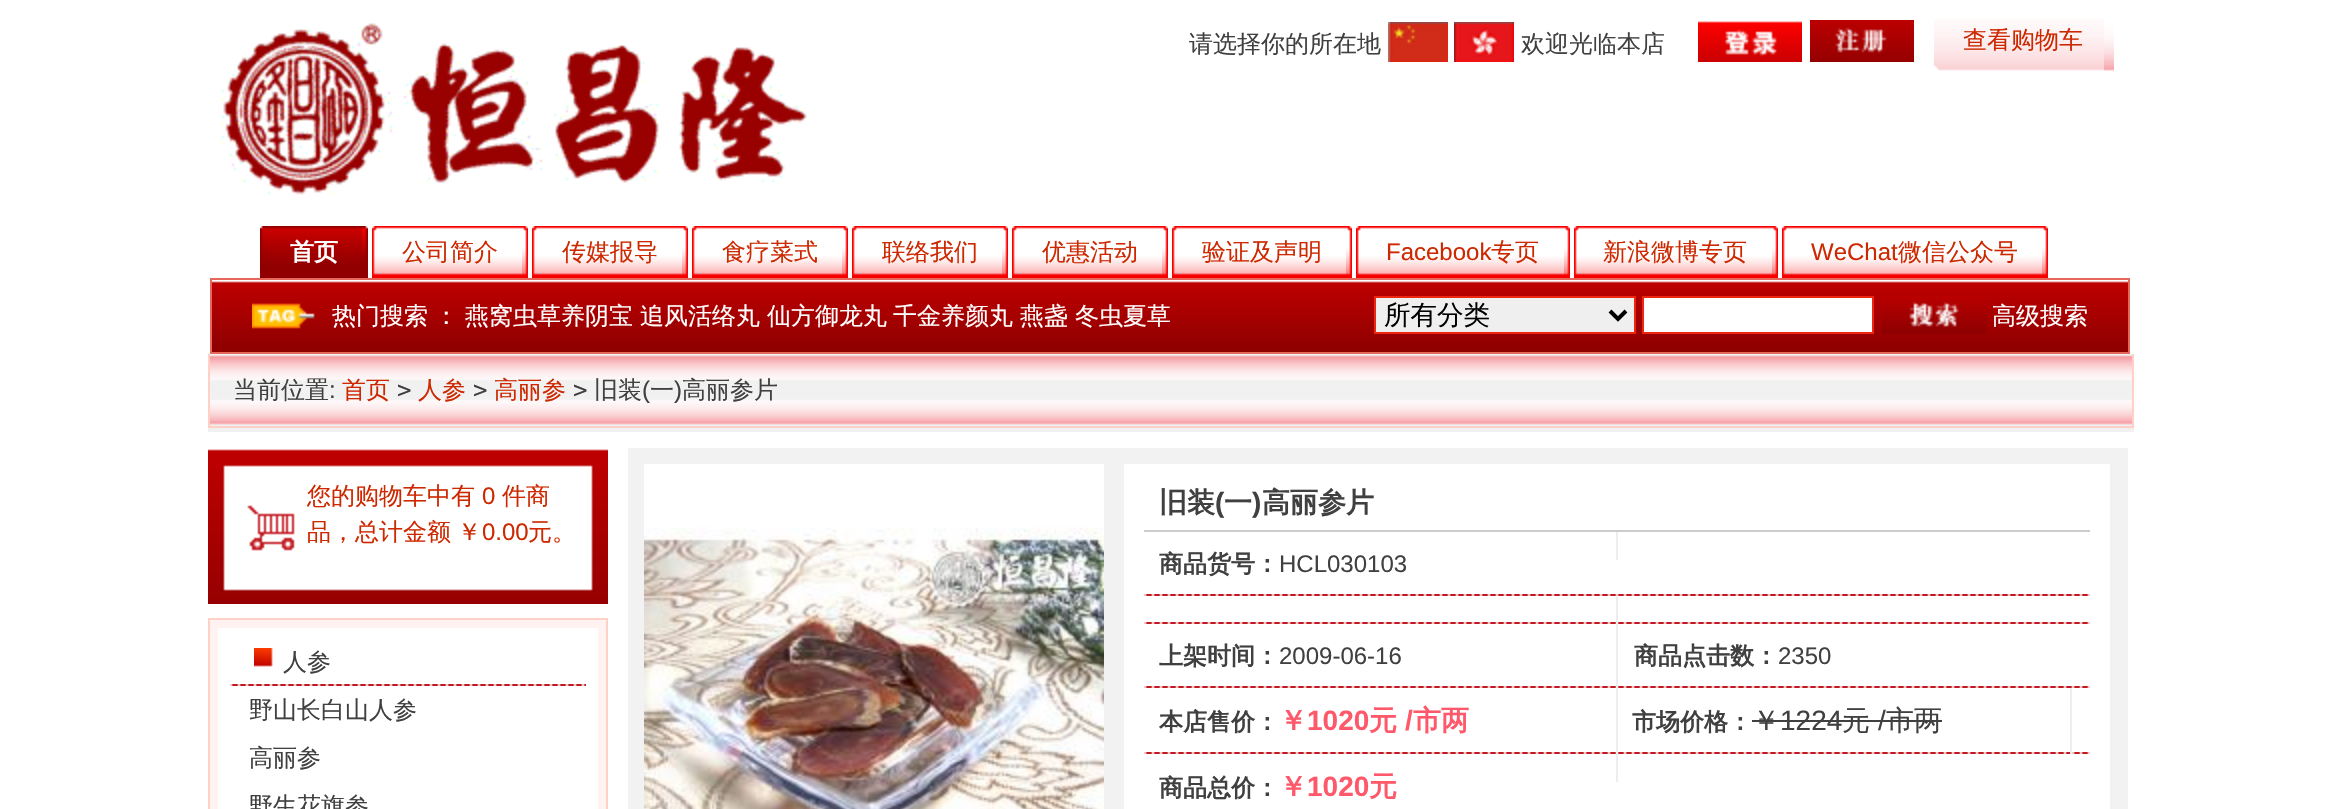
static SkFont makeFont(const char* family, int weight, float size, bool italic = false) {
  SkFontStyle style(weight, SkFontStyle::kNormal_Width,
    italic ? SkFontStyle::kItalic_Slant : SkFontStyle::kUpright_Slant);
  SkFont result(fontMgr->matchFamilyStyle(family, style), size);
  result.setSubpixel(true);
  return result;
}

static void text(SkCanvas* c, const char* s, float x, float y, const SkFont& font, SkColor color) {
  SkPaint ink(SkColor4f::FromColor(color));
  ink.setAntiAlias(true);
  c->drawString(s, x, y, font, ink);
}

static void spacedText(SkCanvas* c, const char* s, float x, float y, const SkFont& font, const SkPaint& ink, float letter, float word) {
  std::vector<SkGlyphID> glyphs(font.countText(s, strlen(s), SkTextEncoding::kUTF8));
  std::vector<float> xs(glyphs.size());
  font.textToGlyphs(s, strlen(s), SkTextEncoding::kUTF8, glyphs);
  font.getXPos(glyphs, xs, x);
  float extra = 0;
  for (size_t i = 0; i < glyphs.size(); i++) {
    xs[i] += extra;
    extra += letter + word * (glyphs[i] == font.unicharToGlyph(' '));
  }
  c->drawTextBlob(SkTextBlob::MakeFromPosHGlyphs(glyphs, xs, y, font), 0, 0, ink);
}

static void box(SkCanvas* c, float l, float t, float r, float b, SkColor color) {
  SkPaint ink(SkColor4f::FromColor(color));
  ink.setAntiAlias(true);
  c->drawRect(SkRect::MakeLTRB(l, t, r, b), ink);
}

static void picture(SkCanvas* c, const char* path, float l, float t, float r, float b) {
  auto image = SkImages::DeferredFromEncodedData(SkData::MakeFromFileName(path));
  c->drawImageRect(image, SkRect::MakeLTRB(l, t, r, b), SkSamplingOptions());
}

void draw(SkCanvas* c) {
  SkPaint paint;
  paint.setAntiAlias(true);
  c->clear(0xffffffff);
  picture(c, "img_01.png", 221, 23, 807, 195);
  SkFont face1 = makeFont("WenQuanYi Zen Hei", 500, 24);
  text(c, "请选择你的所在地", 1189, 52, face1, 0xff404040);
  picture(c, "img_02.png", 1388, 22, 1448, 62);
  picture(c, "img_03.png", 1454, 22, 1514, 62);
  text(c, "欢迎光临本店", 1521, 52, face1, 0xff404040);
  picture(c, "img_04.png", 1698, 21, 1802, 62);
  picture(c, "img_05.png", 1810, 20, 1914, 62);
  picture(c, "img_06.png", 1934, 19, 2114, 71);
  text(c, "查看购物车", 1963, 48, face1, 0xffcd2800);
  picture(c, "img_07.png", 2104, 19, 2114, 71);
  picture(c, "img_08.png", 260, 226, 368, 278);
  SkFont face2 = makeFont("WenQuanYi Zen Hei", 700, 24);
  text(c, "首页", 290, 260, face2, 0xffffffff);
  picture(c, "img_09.png", 362, 226, 368, 263);
  picture(c, "img_10.png", 372, 226, 528, 278);
  text(c, "公司简介", 402, 260, face1, 0xffcd2800);
  picture(c, "img_11.png", 522, 226, 528, 275);
  picture(c, "img_10.png", 532, 226, 688, 278);
  text(c, "传媒报导", 562, 260, face1, 0xffcd2800);
  picture(c, "img_11.png", 682, 226, 688, 275);
  picture(c, "img_10.png", 692, 226, 848, 278);
  text(c, "食疗菜式", 722, 260, face1, 0xffcd2800);
  picture(c, "img_11.png", 842, 226, 848, 275);
  picture(c, "img_10.png", 852, 226, 1008, 278);
  text(c, "联络我们", 882, 260, face1, 0xffcd2800);
  picture(c, "img_11.png", 1002, 226, 1008, 275);
  picture(c, "img_10.png", 1012, 226, 1168, 278);
  text(c, "优惠活动", 1042, 260, face1, 0xffcd2800);
  picture(c, "img_11.png", 1162, 226, 1168, 275);
  picture(c, "img_12.png", 1172, 226, 1352, 278);
  text(c, "验证及声明", 1202, 260, face1, 0xffcd2800);
  picture(c, "img_11.png", 1346, 226, 1352, 275);
  picture(c, "img_13.png", 1356, 226, 1570, 278);
  SkFont face3 = makeFont("Liberation Sans", 400, 24);
  text(c, "Facebook", 1386, 260, face3, 0xffcd2800);
  text(c, "专页", 1491, 260, face1, 0xffcd2800);
  picture(c, "img_11.png", 1564, 226, 1570, 275);
  picture(c, "img_14.png", 1574, 226, 1778, 278);
  text(c, "新浪微博专页", 1603, 260, face1, 0xffcd2800);
  picture(c, "img_11.png", 1772, 226, 1778, 275);
  picture(c, "img_15.png", 1782, 226, 2048, 278);
  text(c, "WeChat", 1811, 260, face3, 0xffcd2800);
  text(c, "微信公众号", 1898, 260, face1, 0xffcd2800);
  picture(c, "img_11.png", 2042, 226, 2048, 275);
  picture(c, "img_16.png", 212, 281, 2128, 352);
  paint.setStyle(SkPaint::kStroke_Style);
  paint.setStrokeWidth(2);
  paint.setColor(0xffe6675c);
  c->drawRect(SkRect::MakeLTRB(211, 279, 2129, 353), paint);
  picture(c, "img_17.png", 252, 303, 315, 329);
  paint.setStyle(SkPaint::kFill_Style);
  paint.setColor(0xffffffff);
  spacedText(c, "热门搜索 ：", 332, 324, face1, paint, 0, -1);
  text(c, "燕窝虫草养阴宝", 465, 324, face1, 0xffffffff);
  text(c, "追风活络丸", 640, 324, face1, 0xffffffff);
  text(c, "仙方御龙丸", 767, 324, face1, 0xffffffff);
  text(c, "千金养颜丸", 893, 324, face1, 0xffffffff);
  text(c, "燕盏", 1020, 324, face1, 0xffffffff);
  text(c, "冬虫夏草", 1075, 324, face1, 0xffffffff);
  paint.setColor(0xffefefef);
  c->drawRect(SkRect::MakeLTRB(1375, 297, 1635, 333), paint);
  paint.setStyle(SkPaint::kStroke_Style);
  paint.setColor(0xffed260f);
  c->drawRect(SkRect::MakeLTRB(1375, 297, 1635, 333), paint);
  paint.setStrokeWidth(4);
  paint.setColor(0xff000000);
  c->drawPath(SkPathBuilder().moveTo(1610, 311).lineTo(1618, 319).lineTo(1626, 311).detach(), paint);
  SkFont face4 = makeFont("WenQuanYi Zen Hei", 500, 26.5f);
  text(c, "所有分类", 1384, 324, face4, 0xff000000);
  paint.setStyle(SkPaint::kFill_Style);
  paint.setColor(0xffffffff);
  c->drawRect(SkRect::MakeLTRB(1643, 297, 1873, 333), paint);
  paint.setStyle(SkPaint::kStroke_Style);
  paint.setStrokeWidth(2);
  paint.setColor(0xffed260f);
  c->drawRect(SkRect::MakeLTRB(1643, 297, 1873, 333), paint);
  picture(c, "img_18.png", 1882, 296, 1986, 334);
  text(c, "高级搜索", 1992, 324, face1, 0xffffffff);
  box(c, 208, 354, 2134, 432, 0xfff1f1f1);
  picture(c, "img_19.png", 210, 355, 2132, 425);
  box(c, 2132, 354, 2134, 428, 0xffffd0c5);
  box(c, 208, 426, 2134, 428, 0xffffd0c5);
  box(c, 208, 354, 210, 428, 0xffffd0c5);
  text(c, "当前位置", 233, 398, face1, 0xff404040);
  text(c, ":", 329, 398, face3, 0xff404040);
  text(c, "首页", 342, 398, face1, 0xffcd2800);
  SkFont face5 = makeFont("DejaVu Sans Mono", 400, 24);
  text(c, ">", 397, 398, face5, 0xff404040);
  text(c, "人参", 418, 398, face1, 0xffcd2800);
  text(c, ">", 473, 398, face5, 0xff404040);
  text(c, "高丽参", 494, 398, face1, 0xffcd2800);
  text(c, ">", 573, 398, face5, 0xff404040);
  text(c, "旧装", 594, 398, face1, 0xff404040);
  text(c, "(", 642, 398, face3, 0xff404040);
  text(c, "一", 650, 398, face1, 0xff404040);
  text(c, ")", 674, 398, face3, 0xff404040);
  text(c, "高丽参片", 682, 398, face1, 0xff404040);
  picture(c, "img_20.png", 208, 449, 608, 604);
  text(c, "您的购物车中有", 307, 504, face1, 0xffcd2800);
  text(c, "0", 482, 504, face3, 0xffcd2800);
  text(c, "件商", 502, 504, face1, 0xffcd2800);
  paint.setStyle(SkPaint::kFill_Style);
  paint.setColor(0xffcd2800);
  spacedText(c, "品，总计金额 ￥", 307, 540, face1, paint, 0, -1);
  text(c, "0.00", 482, 540, face3, 0xffcd2800);
  text(c, "元。", 528, 540, face1, 0xffcd2800);
  paint.setStyle(SkPaint::kStroke_Style);
  paint.setColor(0xffffd0c5);
  c->drawRect(SkRect::MakeLTRB(209, 619, 607, 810), paint);
  paint.setStrokeWidth(8);
  paint.setColor(0xfffff2f1);
  c->drawRect(SkRect::MakeLTRB(214, 624, 602, 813), paint);
  picture(c, "img_21.png", 230, 684, 586, 686);
  picture(c, "img_22.png", 254, 648, 273, 667);
  text(c, "人参", 283, 670, face1, 0xff404040);
  text(c, "野山长白山人参", 249, 718, face1, 0xff404040);
  text(c, "高丽参", 249, 766, face1, 0xff404040);
  text(c, "野生花旗参", 249, 814, face1, 0xff404040);
  box(c, 628, 448, 2128, 809, 0xfff2f2f2);
  picture(c, "img_23.png", 644, 464, 1104, 809);
  box(c, 1124, 464, 2110, 809, 0xffffffff);
  SkFont face6 = makeFont("WenQuanYi Zen Hei", 700, 28);
  text(c, "旧装", 1159, 512, face6, 0xff404040);
  SkFont face7 = makeFont("Liberation Sans", 700, 28);
  text(c, "(", 1215, 512, face7, 0xff404040);
  text(c, "一", 1224, 512, face6, 0xff404040);
  text(c, ")", 1252, 512, face7, 0xff404040);
  text(c, "高丽参片", 1262, 512, face6, 0xff404040);
  box(c, 1144, 530, 2090, 532, 0xffcccccc);
  picture(c, "img_24.png", 1144, 594, 2090, 596);
  box(c, 1616, 532, 1618, 560, 0xffeeecec);
  text(c, "商品货号：", 1159, 572, face2, 0xff404040);
  text(c, "HCL030103", 1279, 572, face3, 0xff404040);
  picture(c, "img_24.png", 1144, 622, 2090, 624);
  picture(c, "img_24.png", 1144, 686, 2090, 688);
  picture(c, "img_24.png", 1144, 752, 2090, 754);
  box(c, 1616, 596, 1618, 782, 0xffeeecec);
  text(c, "上架时间：", 1159, 664, face2, 0xff404040);
  text(c, "2009-06-16", 1279, 664, face3, 0xff404040);
  text(c, "商品点击数：", 1634, 664, face2, 0xff404040);
  text(c, "2350", 1778, 664, face3, 0xff404040);
  text(c, "本店售价：", 1159, 730, face2, 0xff404040);
  text(c, "￥", 1279, 730, face6, 0xfffe596a);
  text(c, "1020", 1307, 730, face7, 0xfffe596a);
  text(c, "元", 1369, 730, face6, 0xfffe596a);
  text(c, "/", 1405, 730, face7, 0xfffe596a);
  text(c, "市两", 1413, 730, face6, 0xfffe596a);
  box(c, 2070, 688, 2072, 754, 0xffeeecec);
  text(c, "市场价格：", 1632, 730, face2, 0xff404040);
  SkFont face8 = makeFont("WenQuanYi Zen Hei", 500, 28);
  text(c, "￥", 1752, 730, face8, 0xff404040);
  SkFont face9 = makeFont("Liberation Sans", 400, 28);
  text(c, "1224", 1780, 730, face9, 0xff404040);
  text(c, "元", 1842, 730, face8, 0xff404040);
  box(c, 1752, 720, 1942, 722, 0xff404040);
  text(c, "/", 1878, 730, face9, 0xff404040);
  text(c, "市两", 1886, 730, face8, 0xff404040);
  text(c, "商品总价：", 1159, 796, face2, 0xff404040);
  text(c, "￥", 1279, 796, face6, 0xfffe596a);
  text(c, "1020", 1307, 796, face7, 0xfffe596a);
  text(c, "元", 1369, 796, face6, 0xfffe596a);
}
